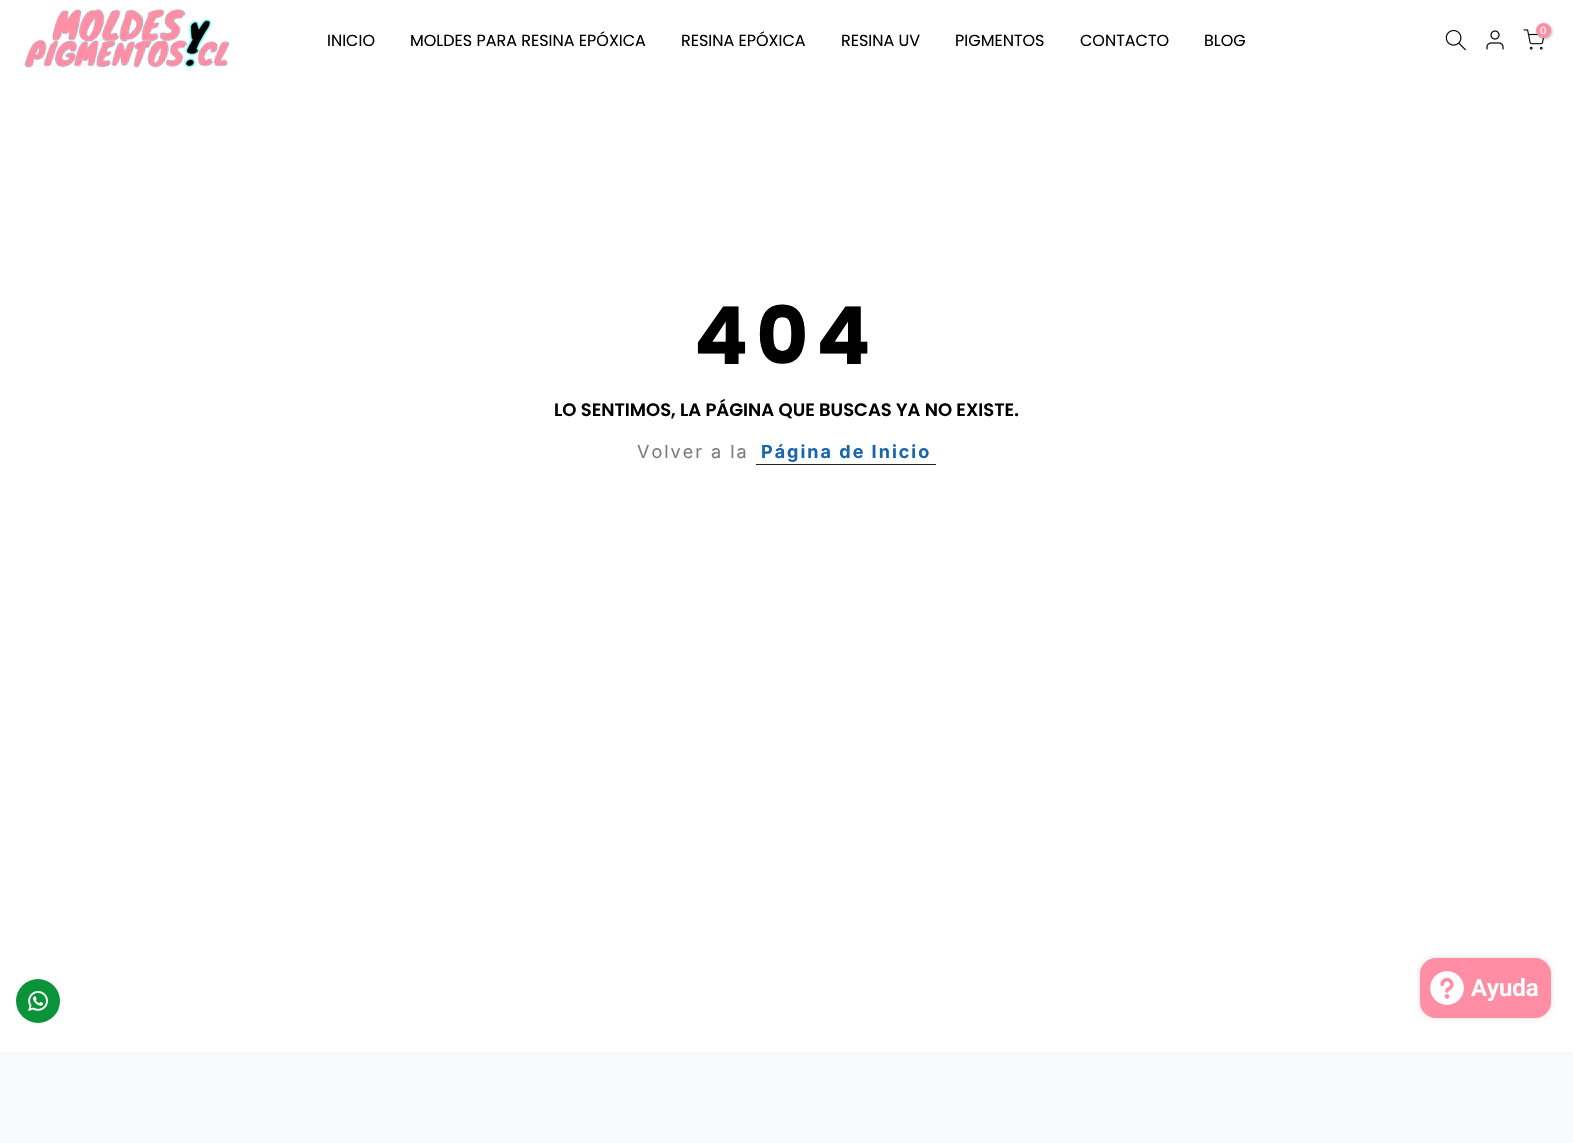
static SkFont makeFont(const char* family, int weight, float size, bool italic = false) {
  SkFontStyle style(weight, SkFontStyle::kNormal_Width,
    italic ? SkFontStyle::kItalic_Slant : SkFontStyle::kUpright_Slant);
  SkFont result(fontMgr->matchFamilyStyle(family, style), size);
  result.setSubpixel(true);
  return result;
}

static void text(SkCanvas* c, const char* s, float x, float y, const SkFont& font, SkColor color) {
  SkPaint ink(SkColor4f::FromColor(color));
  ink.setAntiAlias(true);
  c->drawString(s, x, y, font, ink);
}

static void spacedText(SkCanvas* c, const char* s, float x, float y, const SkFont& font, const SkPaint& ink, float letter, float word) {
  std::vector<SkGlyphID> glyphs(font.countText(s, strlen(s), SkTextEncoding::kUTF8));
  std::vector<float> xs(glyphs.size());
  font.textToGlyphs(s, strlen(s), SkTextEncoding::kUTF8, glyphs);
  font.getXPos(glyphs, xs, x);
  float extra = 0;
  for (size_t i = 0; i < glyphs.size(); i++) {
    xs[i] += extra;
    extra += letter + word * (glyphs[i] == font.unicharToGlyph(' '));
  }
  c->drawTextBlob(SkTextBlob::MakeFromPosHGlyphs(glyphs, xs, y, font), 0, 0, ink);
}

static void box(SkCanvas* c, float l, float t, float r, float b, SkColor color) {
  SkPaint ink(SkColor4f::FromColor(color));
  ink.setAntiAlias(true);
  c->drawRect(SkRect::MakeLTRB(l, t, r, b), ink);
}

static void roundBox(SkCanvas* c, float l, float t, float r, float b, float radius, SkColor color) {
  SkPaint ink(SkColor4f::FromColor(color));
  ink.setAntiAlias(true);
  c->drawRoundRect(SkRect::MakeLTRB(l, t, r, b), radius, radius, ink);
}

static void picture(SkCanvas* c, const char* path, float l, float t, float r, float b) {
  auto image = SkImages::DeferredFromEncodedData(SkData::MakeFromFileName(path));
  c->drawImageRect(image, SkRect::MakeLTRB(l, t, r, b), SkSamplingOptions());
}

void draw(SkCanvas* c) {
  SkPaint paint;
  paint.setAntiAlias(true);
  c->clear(0xffffffff);
  picture(c, "img_01.png", 24, 9, 230, 68);
  SkFont face1 = makeFont("Poppins", 400, 16);
  text(c, "INICIO", 327, 46, face1, 0xff000000);
  text(c, "MOLDES PARA RESINA EPÓXICA", 410, 46, face1, 0xff000000);
  text(c, "RESINA EPÓXICA", 681, 46, face1, 0xff000000);
  text(c, "RESINA UV", 841, 46, face1, 0xff000000);
  text(c, "PIGMENTOS", 955, 46, face1, 0xff000000);
  text(c, "CONTACTO", 1080, 46, face1, 0xff000000);
  text(c, "BLOG", 1204, 46, face1, 0xff000000);
  picture(c, "img_02.png", 1445, 29, 1466, 51);
  picture(c, "img_03.png", 1486, 30, 1504, 50);
  picture(c, "img_04.png", 1523, 29, 1545, 50);
  paint.setColor(0x4d000000);
  paint.setMaskFilter(SkMaskFilter::MakeBlur(kNormal_SkBlurStyle, 1.5f));
  c->drawRoundRect(SkRect::MakeLTRB(1537, 24, 1552, 39), 7.5f, 7.5f, paint);
  paint.setMaskFilter(nullptr);
  paint.setColor(0xffff8ea4);
  c->drawCircle(1543.5f, 30.5f, 7.5f, paint);
  SkFont face2 = makeFont("Inter", 400, 10);
  text(c, "0", 1540, 34, face2, 0xffffffff);
  SkFont face3 = makeFont("Poppins", 700, 80);
  paint.setColor(0xff000000);
  spacedText(c, "404", 694, 364, face3, paint, 8, 0);
  SkFont face4 = makeFont("Poppins", 600, 18);
  text(c, "LO SENTIMOS, LA PÁGINA QUE BUSCAS YA NO EXISTE.", 554, 416, face4, 0xff000000);
  SkFont face5 = makeFont("Inter", 400, 18);
  paint.setColor(0xff7b7b7b);
  spacedText(c, "Volver a la", 637, 458, face5, paint, 2, 0);
  SkFont face6 = makeFont("Inter", 700, 18);
  paint.setColor(0xff1965ae);
  spacedText(c, "Página de Inicio", 761, 458, face6, paint, 2, 0);
  box(c, 756, 464, 936, 465, 0xff222222);
  box(c, 0, 1052, 1573, 1143, 0xfff7fafa);
  paint.setColor(0xff0a9338);
  c->drawCircle(38, 1001, 22, paint);
  picture(c, "img_05.png", 28, 991, 48, 1011);
  paint.setColor(0x26000000);
  paint.setMaskFilter(SkMaskFilter::MakeBlur(kNormal_SkBlurStyle, 2.5f));
  c->drawRoundRect(SkRect::MakeLTRB(1420, 958, 1551, 1018), 16, 16, paint);
  paint.setMaskFilter(nullptr);
  roundBox(c, 1420, 958, 1551, 1018, 16, 0xffff8ea4);
  picture(c, "img_06.png", 1430, 971, 1464, 1005);
  SkFont face7 = makeFont("Roboto", 600, 24);
  text(c, "Ayuda", 1471, 996, face7, 0xffffffff);
}
